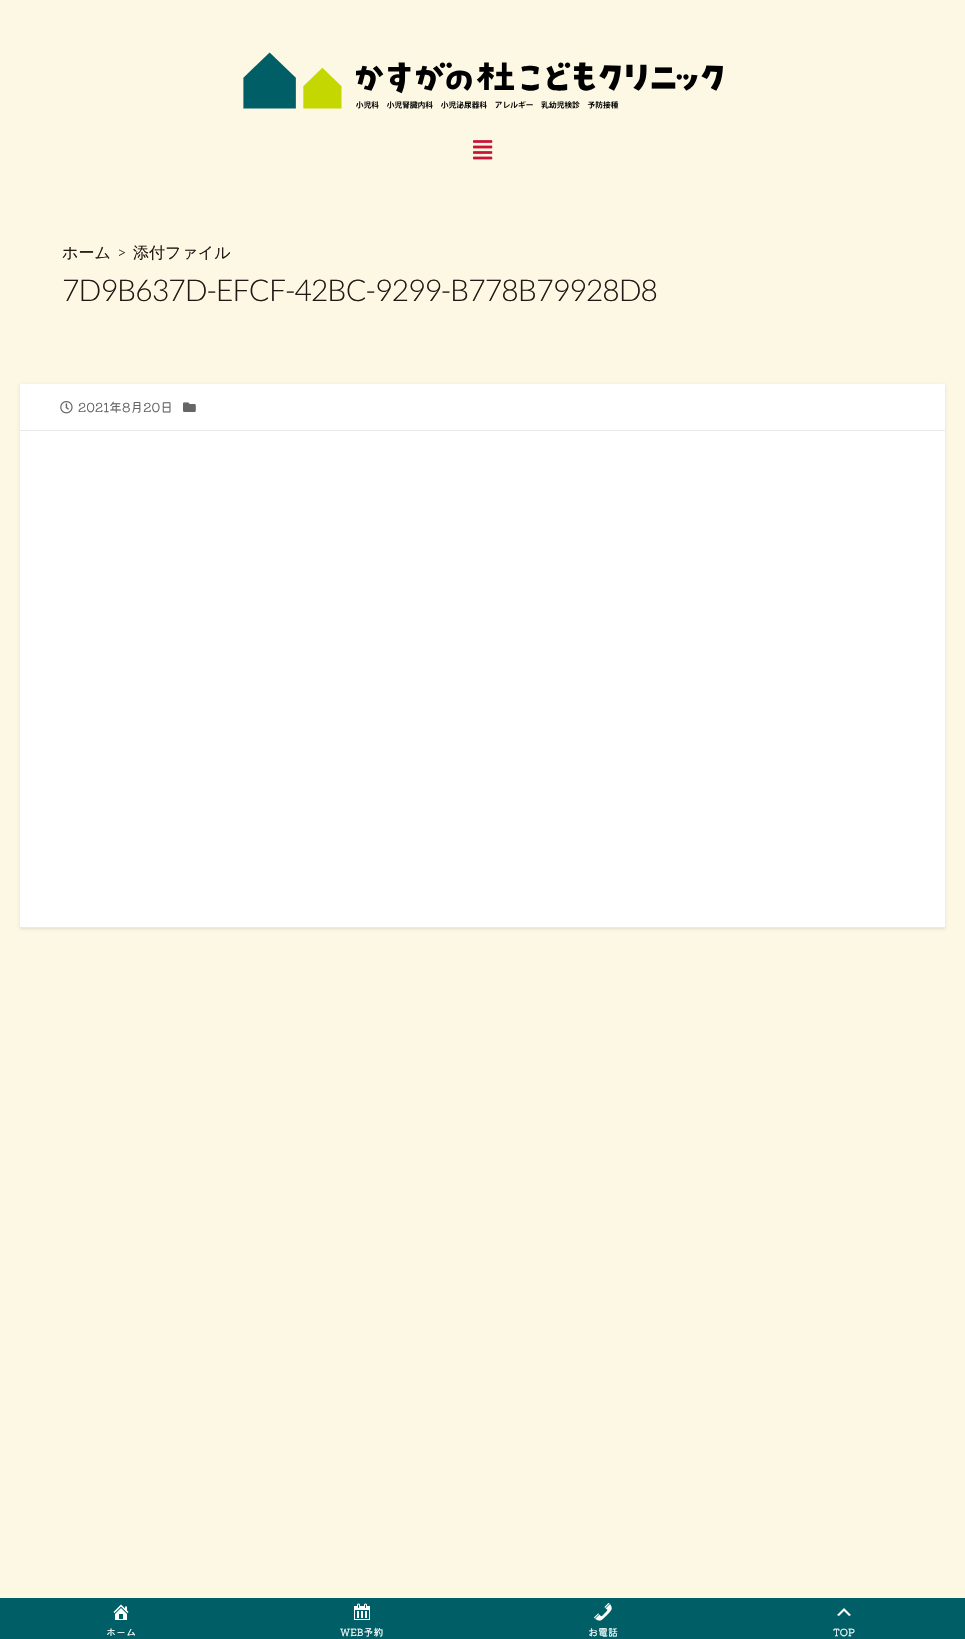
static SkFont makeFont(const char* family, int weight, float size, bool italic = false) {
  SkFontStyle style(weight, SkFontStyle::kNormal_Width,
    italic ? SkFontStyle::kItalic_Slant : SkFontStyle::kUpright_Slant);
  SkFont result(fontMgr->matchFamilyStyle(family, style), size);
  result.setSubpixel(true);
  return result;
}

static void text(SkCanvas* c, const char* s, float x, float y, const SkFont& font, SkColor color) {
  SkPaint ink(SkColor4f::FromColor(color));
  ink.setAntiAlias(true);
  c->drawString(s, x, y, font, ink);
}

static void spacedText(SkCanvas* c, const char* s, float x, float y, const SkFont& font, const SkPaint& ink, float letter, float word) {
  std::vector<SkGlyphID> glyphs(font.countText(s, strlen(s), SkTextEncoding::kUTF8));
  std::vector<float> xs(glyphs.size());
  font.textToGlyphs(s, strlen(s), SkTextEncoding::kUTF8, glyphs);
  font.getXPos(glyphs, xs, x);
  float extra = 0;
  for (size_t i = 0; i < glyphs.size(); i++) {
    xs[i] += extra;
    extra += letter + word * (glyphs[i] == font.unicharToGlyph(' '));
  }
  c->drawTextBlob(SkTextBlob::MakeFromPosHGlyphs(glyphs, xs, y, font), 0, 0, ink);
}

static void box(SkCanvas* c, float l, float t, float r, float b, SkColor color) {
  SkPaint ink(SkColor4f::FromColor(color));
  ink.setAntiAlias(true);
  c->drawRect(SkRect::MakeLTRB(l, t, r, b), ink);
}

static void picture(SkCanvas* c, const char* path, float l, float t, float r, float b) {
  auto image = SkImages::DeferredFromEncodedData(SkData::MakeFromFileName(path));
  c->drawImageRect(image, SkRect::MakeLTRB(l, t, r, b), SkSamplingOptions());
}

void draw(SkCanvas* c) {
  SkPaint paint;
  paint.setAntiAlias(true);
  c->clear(0xfffcf8e4);
  picture(c, "img_01.png", 243, 52, 723, 109);
  picture(c, "img_02.png", 473, 140, 493, 160);
  SkFont face1 = makeFont("WenQuanYi Zen Hei", 500, 16);
  text(c, "ホーム", 62, 258, face1, 0xff231815);
  SkFont face2 = makeFont("Lato", 300, 16);
  text(c, ">", 117, 258, face2, 0xff231815);
  text(c, "添付ファイル", 133, 258, face1, 0xff231815);
  SkFont face3 = makeFont("Lato", 300, 30);
  paint.setColor(0xff231815);
  spacedText(c, "7D9B637D-EFCF-42BC-9299-B778B79928D8", 62, 301, face3, paint, -0.9f, 0);
  paint.setColor(0x1a000000);
  paint.setMaskFilter(SkMaskFilter::MakeBlur(kNormal_SkBlurStyle, 1.5f));
  c->drawRect(SkRect::MakeLTRB(20, 385, 945, 929), paint);
  paint.setMaskFilter(nullptr);
  box(c, 20, 384, 945, 927, 0xffffffff);
  box(c, 20, 430, 945, 431, 0xffeaeaea);
  picture(c, "img_03.png", 60, 401, 73, 414);
  SkFont face4 = makeFont("Kiwi Maru", 400, 12.75f);
  text(c, "2021年8月20日", 78, 412, face4, 0xff666666);
  picture(c, "img_04.png", 183, 402, 196, 412);
  box(c, 20, 927, 945, 928, 0xffeaeaea);
  box(c, 0, 1598, 965, 1639, 0xff005e66);
  picture(c, "img_05.png", 113, 1604, 129, 1620);
  SkFont face5 = makeFont("Kiwi Maru", 400, 10);
  text(c, "ホーム", 106, 1636, face5, 0xffffffff);
  picture(c, "img_06.png", 354, 1603, 370, 1620);
  text(c, "WEB予約", 340, 1636, face5, 0xffffffff);
  picture(c, "img_07.png", 594, 1602, 612, 1621);
  text(c, "お電話", 588, 1636, face5, 0xffffffff);
  picture(c, "img_08.png", 837, 1608, 851, 1616);
  text(c, "TOP", 833, 1636, face5, 0xffffffff);
}
